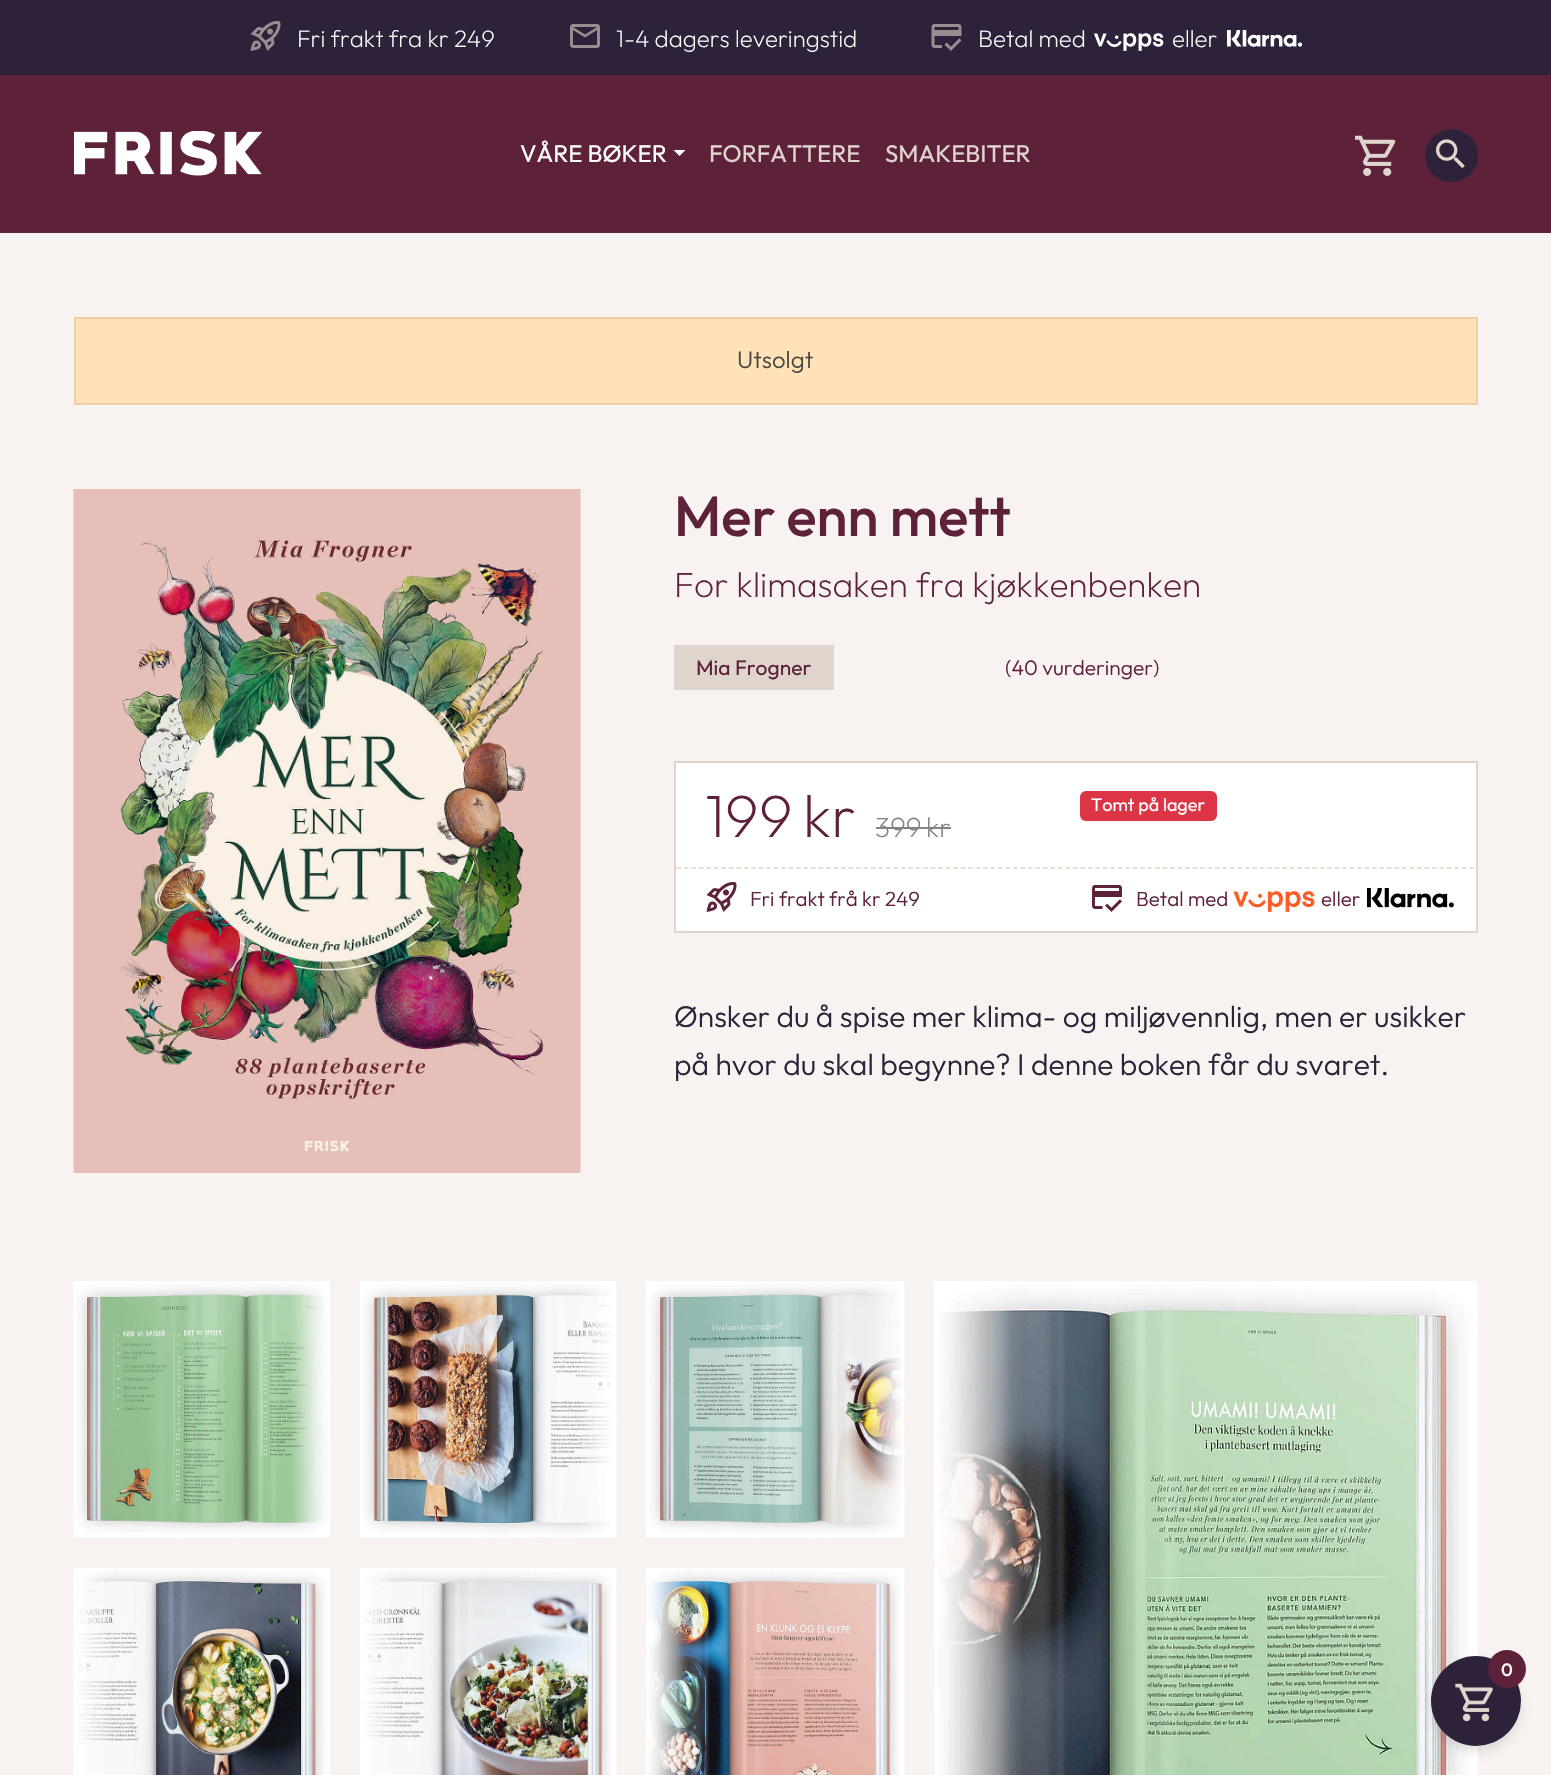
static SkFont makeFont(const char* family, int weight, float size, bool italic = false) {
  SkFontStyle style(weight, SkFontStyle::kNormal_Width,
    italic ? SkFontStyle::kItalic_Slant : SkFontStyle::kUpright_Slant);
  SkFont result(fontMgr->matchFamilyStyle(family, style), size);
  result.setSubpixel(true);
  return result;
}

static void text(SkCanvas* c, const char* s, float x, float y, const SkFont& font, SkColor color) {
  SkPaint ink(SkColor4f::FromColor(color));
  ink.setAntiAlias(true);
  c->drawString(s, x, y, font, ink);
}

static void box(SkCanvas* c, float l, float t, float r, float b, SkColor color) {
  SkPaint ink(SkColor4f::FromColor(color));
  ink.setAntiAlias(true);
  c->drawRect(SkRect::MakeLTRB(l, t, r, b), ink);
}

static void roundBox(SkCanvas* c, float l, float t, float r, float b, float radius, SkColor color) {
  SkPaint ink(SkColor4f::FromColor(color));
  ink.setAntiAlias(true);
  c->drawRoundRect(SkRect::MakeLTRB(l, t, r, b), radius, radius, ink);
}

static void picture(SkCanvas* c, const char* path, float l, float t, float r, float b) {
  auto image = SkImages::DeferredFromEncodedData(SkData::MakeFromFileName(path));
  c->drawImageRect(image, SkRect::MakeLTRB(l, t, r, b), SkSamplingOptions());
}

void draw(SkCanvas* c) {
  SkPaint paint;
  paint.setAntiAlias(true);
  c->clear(0xff2d223a);
  picture(c, "img_01.png", 250, 21, 281, 51);
  SkFont face1 = makeFont("Outfit", 200, 24);
  text(c, "Fri frakt fra kr 249", 297, 47, face1, 0xffffffff);
  picture(c, "img_02.png", 570, 24, 600, 48);
  text(c, "1-4 dagers leveringstid", 616, 47, face1, 0xffffffff);
  picture(c, "img_03.png", 931, 24, 962, 51);
  text(c, "Betal med", 978, 47, face1, 0xffffffff);
  picture(c, "img_04.png", 1094, 33, 1164, 51);
  text(c, "eller", 1172, 47, face1, 0xffffffff);
  picture(c, "img_05.png", 1227, 30, 1303, 47);
  box(c, 0, 75, 1551, 233, 0xff5e213a);
  picture(c, "img_06.png", 74, 131, 263, 176);
  SkFont face2 = makeFont("Outfit", 400, 24);
  text(c, "VÅRE BØKER", 520, 162, face2, 0xffffffff);
  paint.setColor(0xffffffff);
  c->drawPath(SkPathBuilder().moveTo(673.5f, 150).lineTo(685.5f, 150).lineTo(679.5f, 156).close().detach(), paint);
  text(c, "FORFATTERE", 709, 162, face2, 0xffe0d5cc);
  text(c, "SMAKEBITER", 885, 162, face2, 0xffe0d5cc);
  picture(c, "img_07.png", 1355, 135, 1396, 176);
  paint.setColor(0xff2d223a);
  c->drawCircle(1451.5f, 155.5f, 26.5f, paint);
  picture(c, "img_08.png", 1436, 139, 1465, 169);
  box(c, 0, 233, 1551, 1775, 0xfff8f3f0);
  paint.setColor(0xffffe2b8);
  c->drawRect(SkRect::MakeLTRB(75, 318, 1477, 404), paint);
  paint.setStyle(SkPaint::kStroke_Style);
  paint.setStrokeWidth(2);
  paint.setColor(0xfff2cfa0);
  c->drawRect(SkRect::MakeLTRB(75, 318, 1477, 404), paint);
  SkFont face3 = makeFont("Outfit", 300, 24);
  text(c, "Utsolgt", 737, 368, face3, 0xff4c4640);
  picture(c, "img_09.png", 73, 489, 581, 1173);
  SkFont face4 = makeFont("Outfit", 500, 56.25f);
  text(c, "Mer enn mett", 674, 536, face4, 0xff5e213a);
  SkFont face5 = makeFont("Outfit", 200, 35.25f);
  text(c, "For klimasaken fra kjøkkenbenken", 674, 597, face5, 0xff5e213a);
  box(c, 674, 645, 834, 690, 0xffe0d5cc);
  SkFont face6 = makeFont("Outfit", 400, 21);
  text(c, "Mia Frogner", 696, 675, face6, 0xff5e213a);
  SkFont face7 = makeFont("Outfit", 300, 21);
  text(c, "(40 vurderinger)", 1005, 675, face7, 0xff5e213a);
  paint.setStyle(SkPaint::kFill_Style);
  paint.setColor(0xffffffff);
  c->drawRect(SkRect::MakeLTRB(675, 762, 1477, 932), paint);
  paint.setStyle(SkPaint::kStroke_Style);
  paint.setColor(0xffe0d5cc);
  c->drawRect(SkRect::MakeLTRB(675, 762, 1477, 932), paint);
  SkFont face8 = makeFont("Outfit", 200, 60);
  text(c, "199", 705, 837, face8, 0xff5e213a);
  text(c, "kr", 803, 837, face8, 0xff5e213a);
  SkFont face9 = makeFont("Outfit", 200, 28);
  text(c, "399", 875, 837, face9, 0xff818284);
  box(c, 876, 827, 927, 829, 0xff818284);
  text(c, "kr", 926, 837, face9, 0xff818284);
  box(c, 926, 827, 951, 829, 0xff818284);
  roundBox(c, 1080, 791, 1217, 821, 6, 0xffdc3545);
  SkFont face10 = makeFont("Outfit", 400, 18);
  text(c, "Tomt på lager", 1091, 811, face10, 0xffffffff);
  paint.setStrokeWidth(1.5f);
  paint.setPathEffect(SkDashPathEffect::Make({{4.5f, 2.98f}}, 0));
  c->drawPath(SkPathBuilder().moveTo(676.5f, 868).lineTo(1474.5f, 868).detach(), paint);
  paint.setPathEffect(nullptr);
  picture(c, "img_10.png", 706, 882, 737, 912);
  SkFont face11 = makeFont("Outfit", 300, 20.5f);
  text(c, "Fri frakt frå kr 249", 750, 906, face11, 0xff5e213a);
  picture(c, "img_11.png", 1092, 885, 1122, 912);
  text(c, "Betal med", 1136, 906, face11, 0xff5e213a);
  picture(c, "img_12.png", 1233, 891, 1315, 912);
  text(c, "eller", 1321, 906, face11, 0xff5e213a);
  picture(c, "img_13.png", 1367, 888, 1454, 908);
  SkFont face12 = makeFont("Outfit", 300, 30);
  text(c, "Ønsker du å spise mer klima- og miljøvennlig, men er usikker", 674, 1027, face12, 0xff2d223a);
  text(c, "på hvor du skal begynne? I denne boken får du svaret.", 674, 1075, face12, 0xff2d223a);
  picture(c, "img_14.png", 73, 1281, 330, 1538);
  picture(c, "img_15.png", 360, 1281, 617, 1538);
  picture(c, "img_16.png", 646, 1281, 905, 1538);
  picture(c, "img_17.png", 934, 1281, 1478, 1775);
  picture(c, "img_18.png", 73, 1567, 330, 1775);
  picture(c, "img_19.png", 360, 1567, 617, 1775);
  picture(c, "img_20.png", 646, 1567, 905, 1775);
  paint.setStyle(SkPaint::kFill_Style);
  paint.setColor(0x1a000000);
  paint.setMaskFilter(SkMaskFilter::MakeBlur(kNormal_SkBlurStyle, 5));
  c->drawRoundRect(SkRect::MakeLTRB(1431, 1662, 1521, 1752), 45, 45, paint);
  paint.setMaskFilter(nullptr);
  paint.setColor(0xff2d223a);
  c->drawCircle(1476, 1701, 45, paint);
  picture(c, "img_21.png", 1455, 1683, 1493, 1722);
  paint.setColor(0xff5e213a);
  c->drawCircle(1507, 1669, 19, paint);
  SkFont face13 = makeFont("Outfit", 500, 18);
  text(c, "0", 1501, 1676, face13, 0xffffffff);
}
